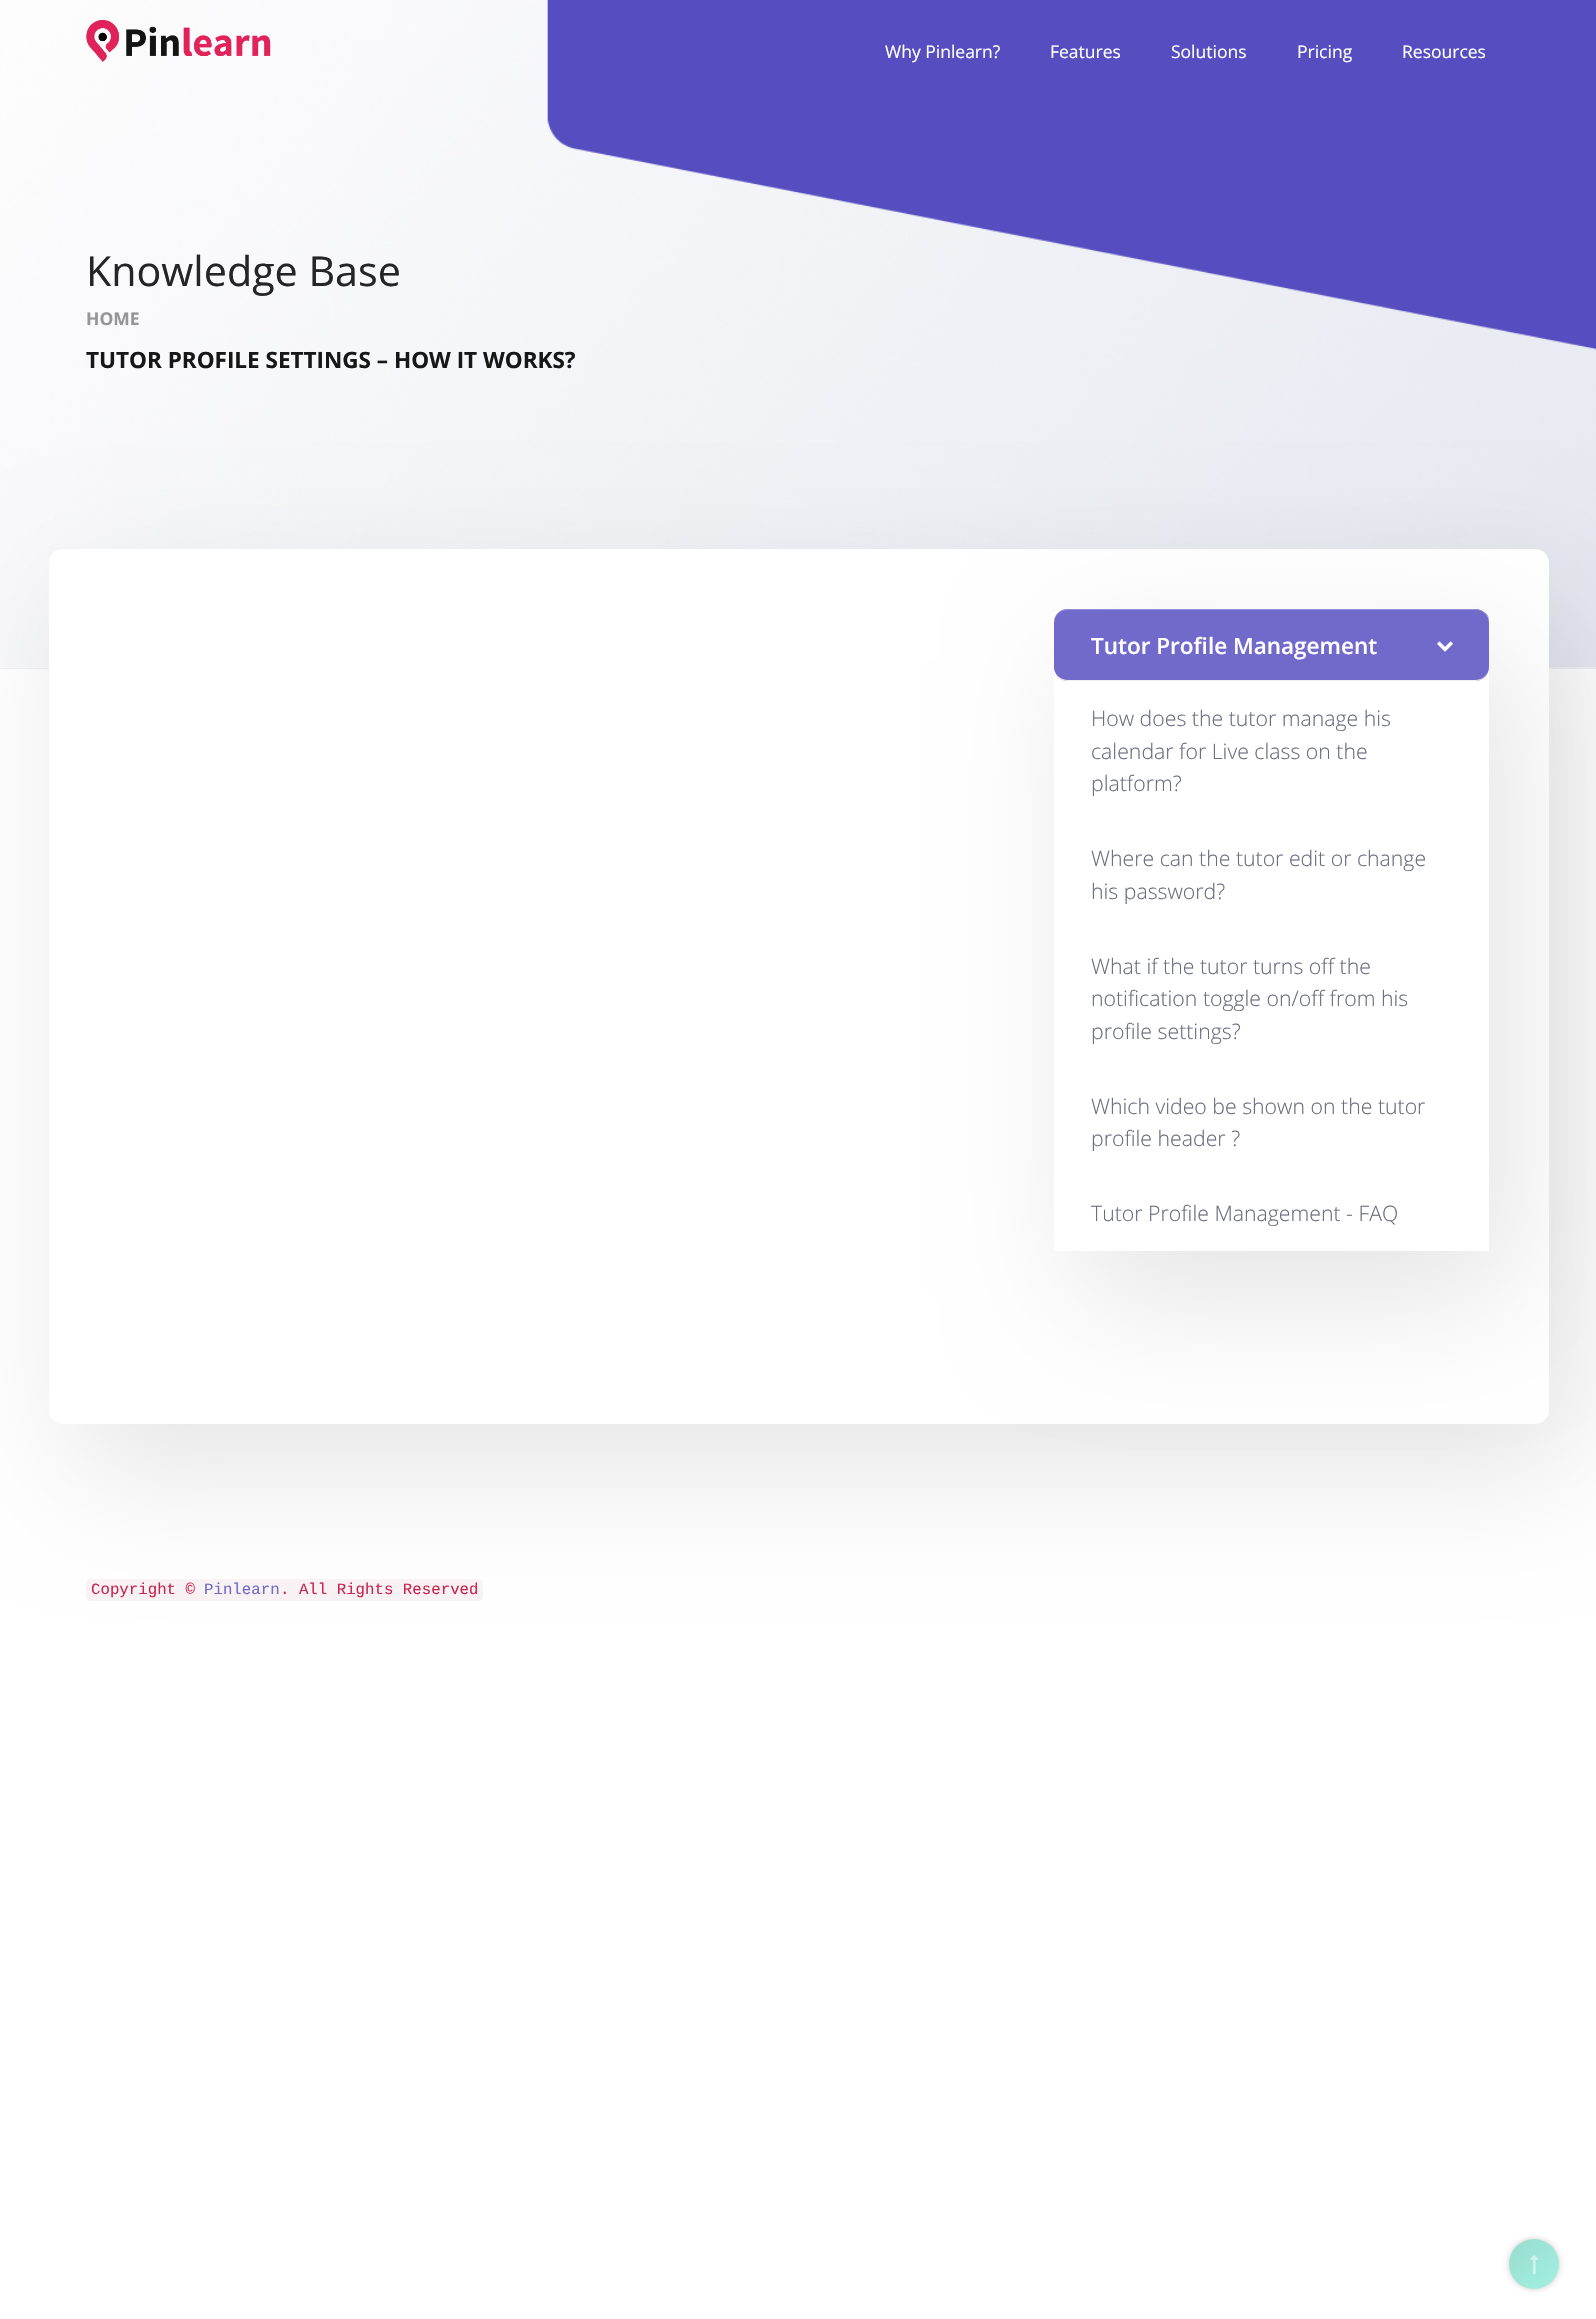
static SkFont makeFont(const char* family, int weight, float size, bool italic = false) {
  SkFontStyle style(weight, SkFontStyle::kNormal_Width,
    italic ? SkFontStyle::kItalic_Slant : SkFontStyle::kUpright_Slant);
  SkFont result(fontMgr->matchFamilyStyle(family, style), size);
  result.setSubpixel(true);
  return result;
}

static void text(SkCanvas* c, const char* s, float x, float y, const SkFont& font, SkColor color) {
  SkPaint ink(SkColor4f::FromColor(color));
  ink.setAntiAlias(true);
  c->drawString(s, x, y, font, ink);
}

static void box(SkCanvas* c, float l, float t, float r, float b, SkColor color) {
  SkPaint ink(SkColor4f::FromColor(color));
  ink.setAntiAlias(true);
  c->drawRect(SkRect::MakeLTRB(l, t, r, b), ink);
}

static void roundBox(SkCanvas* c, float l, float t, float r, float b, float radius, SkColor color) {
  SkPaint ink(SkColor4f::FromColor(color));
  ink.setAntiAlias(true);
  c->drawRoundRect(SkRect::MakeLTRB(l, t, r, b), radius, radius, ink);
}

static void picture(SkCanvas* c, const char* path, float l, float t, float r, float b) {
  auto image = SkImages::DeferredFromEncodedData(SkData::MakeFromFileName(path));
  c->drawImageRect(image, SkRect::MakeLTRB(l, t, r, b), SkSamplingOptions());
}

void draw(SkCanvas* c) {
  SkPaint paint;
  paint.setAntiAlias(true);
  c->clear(0xffffffff);
  paint.setStyle(SkPaint::kStroke_Style);
  paint.setStrokeWidth(1);
  paint.setColor(0xfff0f0f0);
  c->drawRect(SkRect::MakeLTRB(-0.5f, -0.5f, 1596.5f, 668.5f), paint);
  box(c, 0, 667, 1596, 668, 0xfffbfdfc);
  picture(c, "img_02.png", 0, 0, 1596, 668);
  picture(c, "img_01.png", 86, 20, 271, 62);
  SkFont face1 = makeFont("Open Sans", 400, 17.5f);
  text(c, "Why Pinlearn?", 885, 58, face1, 0xffffffff);
  text(c, "Features", 1050, 58, face1, 0xffffffff);
  text(c, "Solutions", 1171, 58, face1, 0xffffffff);
  text(c, "Pricing", 1297, 58, face1, 0xffffffff);
  text(c, "Resources", 1402, 58, face1, 0xffffffff);
  SkFont face2 = makeFont("Open Sans", 400, 41.25f);
  text(c, "Knowledge Base", 86, 286, face2, 0xff252525);
  SkFont face3 = makeFont("Open Sans", 700, 17.5f);
  text(c, "HOME", 86, 325, face3, 0xff959499);
  SkFont face4 = makeFont("Open Sans", 700, 22.5f);
  text(c, "TUTOR PROFILE SETTINGS – HOW IT WORKS?", 86, 368, face4, 0xff171717);
  paint.setStyle(SkPaint::kFill_Style);
  paint.setColor(0x1a000000);
  paint.setMaskFilter(SkMaskFilter::MakeBlur(kNormal_SkBlurStyle, 64));
  c->drawRoundRect(SkRect::MakeLTRB(74, 595, 1574, 1470), 14, 14, paint);
  paint.setMaskFilter(nullptr);
  roundBox(c, 49, 549, 1549, 1424, 14, 0xffffffff);
  paint.setMaskFilter(SkMaskFilter::MakeBlur(kNormal_SkBlurStyle, 64));
  c->drawRoundRect(SkRect::MakeLTRB(1079, 655, 1514, 1298), 14, 14, paint);
  paint.setMaskFilter(nullptr);
  roundBox(c, 1054, 609, 1489, 1251, 14, 0xffffffff);
  roundBox(c, 1054, 609, 1489, 681, 14, 0xff716aca);
  paint.setColor(0xff938ed6);
  c->drawPath(SkPathBuilder().moveTo(1068, 609).lineTo(1475, 609).cubicTo(1481, 609, 1489, 613, 1489, 620).cubicTo(1488, 615, 1482, 610, 1475, 610).lineTo(1068, 610).cubicTo(1060, 610, 1054, 616, 1054, 622).cubicTo(1054, 615, 1060, 609, 1068, 609).close().detach(), paint);
  paint.setColor(0xffefefef);
  c->drawPath(SkPathBuilder().moveTo(1489, 670).cubicTo(1488, 676, 1482, 681, 1475, 681).lineTo(1068, 681).cubicTo(1060, 681, 1054, 675, 1054, 668).cubicTo(1054, 674, 1060, 680, 1068, 680).lineTo(1475, 680).cubicTo(1482, 680, 1488, 675, 1489, 670).close().detach(), paint);
  SkFont face5 = makeFont("Open Sans", 600, 22.5f);
  text(c, "Tutor Profile Management", 1091, 654, face5, 0xffffffff);
  picture(c, "img_03.png", 1437, 641, 1453, 652);
  box(c, 1054, 1239, 1489, 1251, 0xffffffff);
  SkFont face6 = makeFont("Open Sans", 300, 21.25f);
  text(c, "How does the tutor manage his", 1091, 726, face6, 0xff696b7e);
  text(c, "calendar for Live class on the", 1091, 759, face6, 0xff696b7e);
  text(c, "platform?", 1091, 791, face6, 0xff696b7e);
  text(c, "Where can the tutor edit or change", 1091, 866, face6, 0xff696b7e);
  text(c, "his password?", 1091, 899, face6, 0xff696b7e);
  text(c, "What if the tutor turns off the", 1091, 974, face6, 0xff696b7e);
  text(c, "notification toggle on/off from his", 1091, 1006, face6, 0xff696b7e);
  text(c, "profile settings?", 1091, 1039, face6, 0xff696b7e);
  text(c, "Which video be shown on the tutor", 1091, 1114, face6, 0xff696b7e);
  text(c, "profile header ?", 1091, 1146, face6, 0xff696b7e);
  text(c, "Tutor Profile Management - FAQ", 1091, 1221, face6, 0xff696b7e);
  paint.setColor(0xfff9f2f4);
  c->drawPath(SkPathBuilder().moveTo(91, 1579).lineTo(204, 1579).lineTo(204, 1601).lineTo(91, 1601).cubicTo(88, 1601, 86, 1599, 86, 1596).lineTo(86, 1584).cubicTo(86, 1581, 88, 1579, 91, 1579).close().detach(), paint);
  SkFont face7 = makeFont("Liberation Mono", 400, 15.75f);
  text(c, "Copyright ©", 91, 1594, face7, 0xffc7254e);
  box(c, 204, 1579, 280, 1601, 0xfff9f2f4);
  text(c, "Pinlearn", 204, 1594, face7, 0xff716aca);
  c->drawPath(SkPathBuilder().moveTo(280, 1579).lineTo(478, 1579).cubicTo(481, 1579, 483, 1581, 483, 1584).lineTo(483, 1596).cubicTo(483, 1599, 481, 1601, 478, 1601).lineTo(280, 1601).close().detach(), paint);
  text(c, ". All Rights Reserved", 280, 1594, face7, 0xffc7254e);
  paint.setColor(0x66808080);
  paint.setMaskFilter(SkMaskFilter::MakeBlur(kNormal_SkBlurStyle, 3));
  c->drawRoundRect(SkRect::MakeLTRB(1509, 2239, 1559, 2289), 25, 25, paint);
  paint.setMaskFilter(nullptr);
  {
    const SkColor colors[] = {0xffa0eddd, 0xff9adfd1};
    const float stops[] = {0.2f, 0.85f};
    const SkPoint ends[] = {{1557, 2291}, {1511, 2237}};
    paint.setShader(SkGradientShader::MakeLinear(ends, colors, stops, 2, SkTileMode::kClamp));
    paint.setAlpha(255);
  }
  c->drawCircle(1534, 2264, 25, paint);
  picture(c, "img_04.png", 1530, 2255, 1539, 2275);
}
